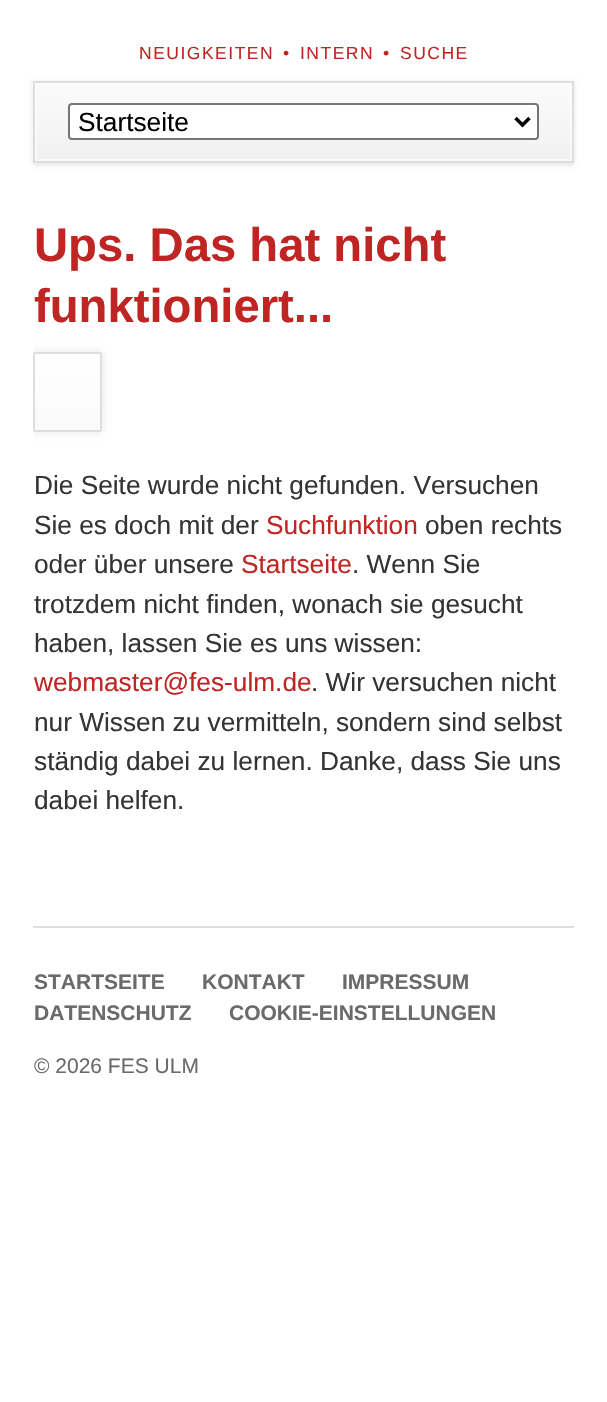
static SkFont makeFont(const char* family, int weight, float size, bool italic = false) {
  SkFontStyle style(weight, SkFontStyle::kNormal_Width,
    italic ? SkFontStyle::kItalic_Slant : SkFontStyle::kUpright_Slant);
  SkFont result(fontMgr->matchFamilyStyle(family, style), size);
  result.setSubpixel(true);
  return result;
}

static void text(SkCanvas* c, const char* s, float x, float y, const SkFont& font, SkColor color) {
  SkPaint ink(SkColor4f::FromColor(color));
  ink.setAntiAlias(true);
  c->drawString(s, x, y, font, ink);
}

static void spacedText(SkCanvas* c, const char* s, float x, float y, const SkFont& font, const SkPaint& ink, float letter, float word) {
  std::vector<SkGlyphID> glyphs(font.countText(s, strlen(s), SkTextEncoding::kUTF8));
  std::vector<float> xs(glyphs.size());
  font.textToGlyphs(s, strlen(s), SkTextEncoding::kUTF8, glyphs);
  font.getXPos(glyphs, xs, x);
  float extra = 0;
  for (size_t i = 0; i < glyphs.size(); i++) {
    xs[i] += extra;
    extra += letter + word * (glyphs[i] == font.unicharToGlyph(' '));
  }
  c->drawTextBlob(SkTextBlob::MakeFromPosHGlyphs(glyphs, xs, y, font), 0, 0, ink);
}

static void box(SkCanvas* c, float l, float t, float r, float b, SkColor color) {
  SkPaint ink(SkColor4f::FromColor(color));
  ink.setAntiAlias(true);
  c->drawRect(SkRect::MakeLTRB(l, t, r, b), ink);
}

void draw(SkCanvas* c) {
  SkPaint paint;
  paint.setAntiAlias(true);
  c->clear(0xffffffff);
  SkFont face1 = makeFont("Liberation Sans", 400, 17.5f);
  paint.setColor(0xffbf2522);
  spacedText(c, "NEUIGKEITEN", 139, 59, face1, paint, 1.5f, 0);
  spacedText(c, "•", 283, 59, face1, paint, 1.5f, 0);
  spacedText(c, "INTERN", 300, 59, face1, paint, 1.5f, 0);
  spacedText(c, "•", 383, 59, face1, paint, 1.5f, 0);
  spacedText(c, "SUCHE", 400, 59, face1, paint, 1.5f, 0);
  paint.setColor(0x1a000000);
  paint.setMaskFilter(SkMaskFilter::MakeBlur(kNormal_SkBlurStyle, 2.5f));
  c->drawRect(SkRect::MakeLTRB(33, 82, 574, 165), paint);
  paint.setMaskFilter(nullptr);
  {
    const SkColor colors[] = {0xfffbfbfb, 0xfff1f1f1};
    const float stops[] = {0, 1};
    const SkPoint ends[] = {{304, 82}, {304, 161}};
    paint.setShader(SkGradientShader::MakeLinear(ends, colors, stops, 2, SkTileMode::kClamp));
    paint.setAlpha(255);
  }
  c->drawRect(SkRect::MakeLTRB(35, 83, 572, 161), paint);
  paint.setStyle(SkPaint::kStroke_Style);
  paint.setStrokeWidth(2);
  paint.setShader(nullptr);
  paint.setColor(0x80ffffff);
  c->drawRect(SkRect::MakeLTRB(36, 83, 571, 160), paint);
  paint.setColor(0xffdedede);
  c->drawRect(SkRect::MakeLTRB(34, 82, 573, 162), paint);
  paint.setStyle(SkPaint::kFill_Style);
  paint.setColor(0xffffffff);
  c->drawRoundRect(SkRect::MakeLTRB(69, 104, 538, 139), 3, 3, paint);
  paint.setStyle(SkPaint::kStroke_Style);
  paint.setColor(0xff767676);
  c->drawRoundRect(SkRect::MakeLTRB(69, 104, 538, 139), 3, 3, paint);
  paint.setStrokeWidth(3.5f);
  paint.setColor(0xff000000);
  c->drawPath(SkPathBuilder().moveTo(515.5f, 118).lineTo(522.5f, 125).lineTo(529.5f, 118).detach(), paint);
  SkFont face2 = makeFont("Liberation Sans", 400, 26.25f);
  text(c, "Startseite", 78, 131, face2, 0xff000000);
  SkFont face3 = makeFont("Liberation Sans", 700, 47.25f);
  text(c, "Ups. Das hat nicht", 34, 261, face3, 0xffbf2522);
  text(c, "funktioniert...", 34, 322, face3, 0xffbf2522);
  c->save();
  c->clipRect(SkRect::MakeLTRB(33, 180, 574, 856));
  paint.setStyle(SkPaint::kFill_Style);
  paint.setColor(0x1a000000);
  paint.setMaskFilter(SkMaskFilter::MakeBlur(kNormal_SkBlurStyle, 4.5f));
  c->drawRoundRect(SkRect::MakeLTRB(33, 352, 102, 432), 2.5f, 2.5f, paint);
  paint.setMaskFilter(nullptr);
  c->restore();
  {
    const SkColor colors[] = {0xffffffff, 0xfffafafa};
    const float stops[] = {0, 1};
    const SkPoint ends[] = {{67, 354}, {67, 431}};
    paint.setShader(SkGradientShader::MakeLinear(ends, colors, stops, 2, SkTileMode::kClamp));
    paint.setAlpha(255);
  }
  c->drawRect(SkRect::MakeLTRB(33, 354, 102, 431), paint);
  paint.setStyle(SkPaint::kStroke_Style);
  paint.setStrokeWidth(2);
  paint.setShader(nullptr);
  paint.setColor(0xffdedede);
  c->drawRoundRect(SkRect::MakeLTRB(34, 353, 101, 431), 1.5f, 1.5f, paint);
  text(c, "Die Seite wurde nicht gefunden. Versuchen", 34, 494, face2, 0xff343434);
  text(c, "Sie es doch mit der", 34, 534, face2, 0xff343434);
  text(c, "Suchfunktion", 266, 534, face2, 0xffbf2522);
  text(c, "oben rechts", 425, 534, face2, 0xff343434);
  text(c, "oder über unsere", 34, 573, face2, 0xff343434);
  text(c, "Startseite", 241, 573, face2, 0xffbf2522);
  text(c, ". Wenn Sie", 352, 573, face2, 0xff343434);
  text(c, "trotzdem nicht finden, wonach sie gesucht", 34, 613, face2, 0xff343434);
  text(c, "haben, lassen Sie es uns wissen:", 34, 652, face2, 0xff343434);
  text(c, "webmaster@fes-ulm.de", 34, 691, face2, 0xffbf2522);
  text(c, ". Wir versuchen nicht", 311, 691, face2, 0xff343434);
  text(c, "nur Wissen zu vermitteln, sondern sind selbst", 34, 731, face2, 0xff343434);
  text(c, "ständig dabei zu lernen. Danke, dass Sie uns", 34, 770, face2, 0xff343434);
  text(c, "dabei helfen.", 34, 809, face2, 0xff343434);
  box(c, 33, 926, 574, 928, 0xffdedede);
  SkFont face4 = makeFont("Liberation Sans", 700, 21);
  text(c, "STARTSEITE", 34, 989, face4, 0xff6a6a6a);
  text(c, "KONTAKT", 202, 989, face4, 0xff6a6a6a);
  text(c, "IMPRESSUM", 342, 989, face4, 0xff6a6a6a);
  text(c, "DATENSCHUTZ", 34, 1020, face4, 0xff6a6a6a);
  text(c, "COOKIE-EINSTELLUNGEN", 229, 1020, face4, 0xff6a6a6a);
  SkFont face5 = makeFont("Liberation Sans", 400, 21);
  text(c, "© 2026 FES ULM", 34, 1073, face5, 0xff6a6a6a);
}
